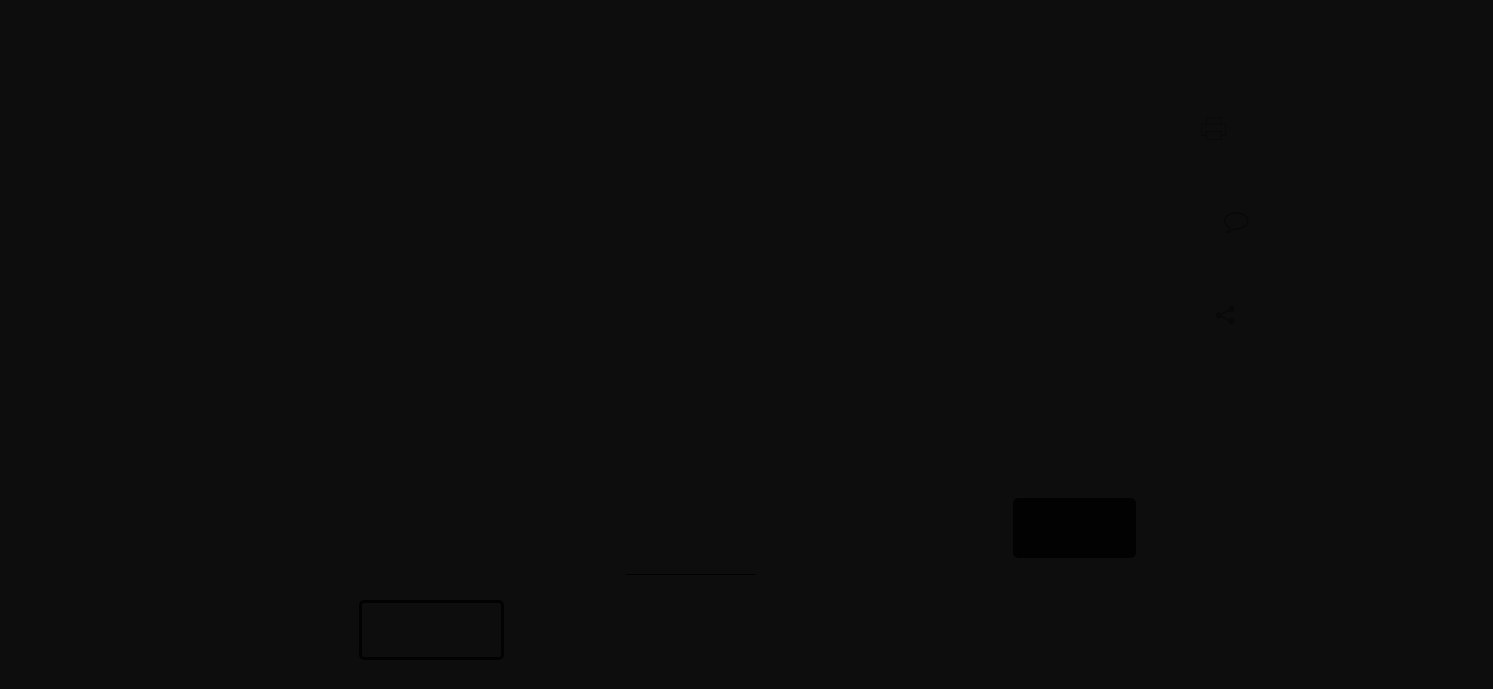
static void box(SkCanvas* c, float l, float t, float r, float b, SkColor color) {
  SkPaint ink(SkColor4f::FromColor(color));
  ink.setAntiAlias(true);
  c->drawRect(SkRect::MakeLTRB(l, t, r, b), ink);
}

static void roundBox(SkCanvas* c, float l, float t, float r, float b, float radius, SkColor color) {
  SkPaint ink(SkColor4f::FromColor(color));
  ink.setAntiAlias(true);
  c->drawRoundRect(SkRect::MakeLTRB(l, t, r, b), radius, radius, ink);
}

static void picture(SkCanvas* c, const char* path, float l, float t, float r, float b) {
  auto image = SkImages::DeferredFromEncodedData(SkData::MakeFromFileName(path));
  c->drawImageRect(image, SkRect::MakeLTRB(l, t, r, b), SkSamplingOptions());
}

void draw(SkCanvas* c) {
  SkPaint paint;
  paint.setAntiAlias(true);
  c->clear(0xff0d0d0d);
  picture(c, "img_01.png", 1201, 117, 1227, 141);
  picture(c, "img_02.png", 1223, 212, 1249, 234);
  picture(c, "img_03.png", 1215, 306, 1235, 325);
  roundBox(c, 1013, 498, 1136, 558, 5, 0xff020202);
  box(c, 626, 574, 756, 575, 0xff020202);
  paint.setStyle(SkPaint::kStroke_Style);
  paint.setStrokeWidth(3);
  paint.setColor(0xff020202);
  c->drawRoundRect(SkRect::MakeLTRB(360.5f, 601.5f, 502.5f, 658.5f), 3.5f, 3.5f, paint);
}
